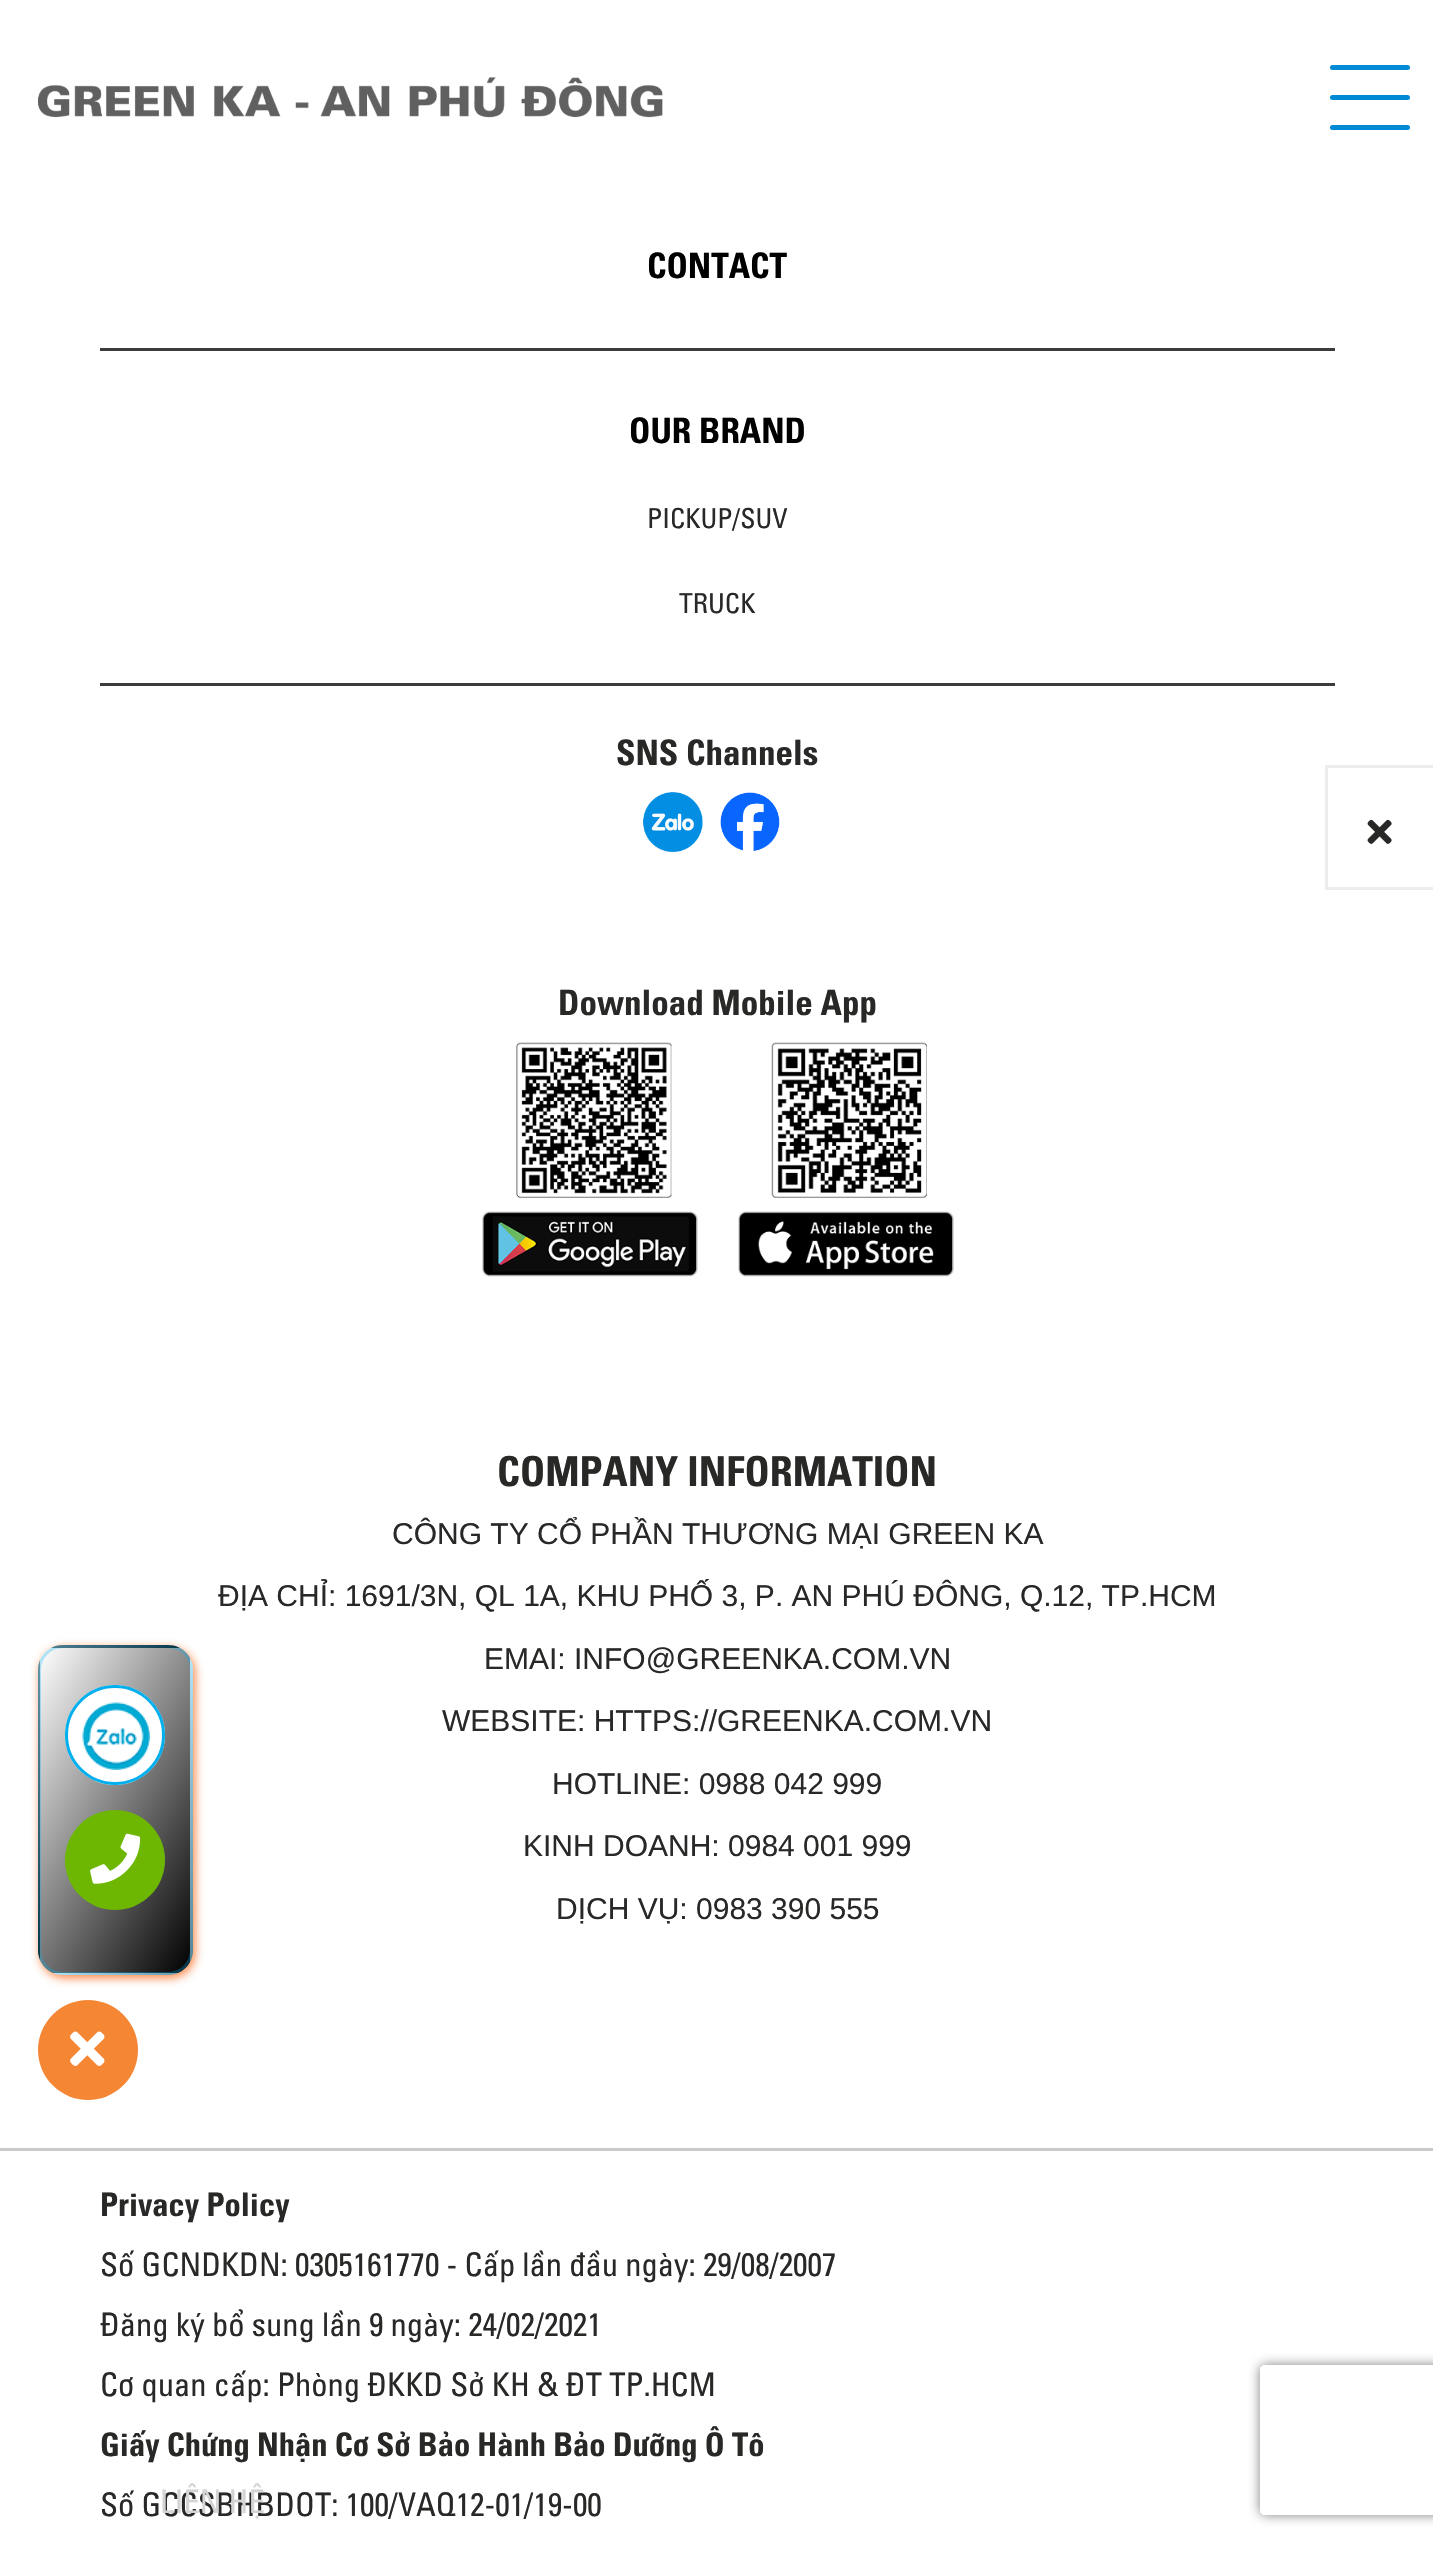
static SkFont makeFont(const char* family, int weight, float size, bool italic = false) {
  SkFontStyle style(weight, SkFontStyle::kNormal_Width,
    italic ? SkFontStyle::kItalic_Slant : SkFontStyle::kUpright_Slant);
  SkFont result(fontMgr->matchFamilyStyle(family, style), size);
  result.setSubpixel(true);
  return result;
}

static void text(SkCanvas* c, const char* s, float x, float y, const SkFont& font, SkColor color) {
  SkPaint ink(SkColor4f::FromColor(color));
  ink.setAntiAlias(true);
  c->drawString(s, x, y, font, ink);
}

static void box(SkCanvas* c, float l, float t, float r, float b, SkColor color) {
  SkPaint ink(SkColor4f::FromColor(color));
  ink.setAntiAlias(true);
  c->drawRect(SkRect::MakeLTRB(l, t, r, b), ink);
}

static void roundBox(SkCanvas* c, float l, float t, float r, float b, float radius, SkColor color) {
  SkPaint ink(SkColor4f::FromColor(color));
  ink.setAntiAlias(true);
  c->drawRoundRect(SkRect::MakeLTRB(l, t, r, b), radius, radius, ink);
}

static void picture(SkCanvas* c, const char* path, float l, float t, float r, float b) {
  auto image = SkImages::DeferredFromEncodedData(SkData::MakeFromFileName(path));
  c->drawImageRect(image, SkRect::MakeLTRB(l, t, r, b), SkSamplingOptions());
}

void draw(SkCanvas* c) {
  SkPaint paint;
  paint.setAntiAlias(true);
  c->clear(0xffffffff);
  picture(c, "img_01.png", 38, 77, 663, 118);
  roundBox(c, 1330, 65, 1410, 70, 2.5f, 0xff008ad5);
  roundBox(c, 1330, 95, 1410, 100, 2.5f, 0xff008ad5);
  roundBox(c, 1330, 125, 1410, 130, 2.5f, 0xff008ad5);
  box(c, 0, 2148, 1433, 2151, 0xffcbcaca);
  box(c, 100, 348, 1335, 351, 0xff3c3c3c);
  SkFont face1 = makeFont("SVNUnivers", 700, 35);
  text(c, "CONTACT", 647, 278, face1, 0xff000000);
  box(c, 100, 683, 1335, 686, 0xff3c3c3c);
  text(c, "OUR BRAND", 629, 443, face1, 0xff000000);
  SkFont face2 = makeFont("SVNUnivers", 400, 27.5f);
  text(c, "PICKUP/SUV", 647, 528, face2, 0xff282827);
  text(c, "TRUCK", 679, 613, face2, 0xff282827);
  text(c, "SNS Channels", 616, 765, face1, 0xff282827);
  picture(c, "img_02.png", 643, 792, 703, 852);
  picture(c, "img_03.png", 720, 792, 780, 851);
  text(c, "Download Mobile App", 558, 1015, face1, 0xff282827);
  picture(c, "img_04.png", 482, 1042, 954, 1277);
  SkFont face3 = makeFont("SVNUnivers", 700, 41.25f);
  text(c, "COMPANY INFORMATION", 497, 1486, face3, 0xff282827);
  SkFont face4 = makeFont("Liberation Sans", 400, 30);
  text(c, "CÔNG TY CỔ PHẦN THƯƠNG MẠI GREEN KA", 392, 1544, face4, 0xff282827);
  text(c, "ĐỊA CHỈ: 1691/3N, QL 1A, KHU PHỐ 3, P. AN PHÚ ĐÔNG, Q.12, TP.HCM", 218, 1606, face4, 0xff282827);
  text(c, "EMAI: INFO@GREENKA.COM.VN", 484, 1669, face4, 0xff282827);
  text(c, "WEBSITE: HTTPS://GREENKA.COM.VN", 442, 1731, face4, 0xff282827);
  text(c, "HOTLINE: 0988 042 999", 552, 1794, face4, 0xff282827);
  text(c, "KINH DOANH: 0984 001 999", 523, 1856, face4, 0xff282827);
  text(c, "DỊCH VỤ: 0983 390 555", 556, 1919, face4, 0xff282827);
  paint.setStyle(SkPaint::kStroke_Style);
  paint.setStrokeWidth(3);
  paint.setColor(0xffececec);
  c->drawRect(SkRect::MakeLTRB(1326.5f, 766.5f, 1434.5f, 888.5f), paint);
  picture(c, "img_05.png", 1367, 819, 1392, 844);
  SkFont face5 = makeFont("SVNUnivers", 700, 32.5f);
  text(c, "Privacy Policy", 100, 2216, face5, 0xff282827);
  SkFont face6 = makeFont("SVNUnivers", 400, 32.5f);
  text(c, "Số GCNDKDN: 0305161770 - Cấp lần đầu ngày: 29/08/2007", 100, 2276, face6, 0xff282827);
  text(c, "Đăng ký bổ sung lần 9 ngày: 24/02/2021", 100, 2336, face6, 0xff282827);
  text(c, "Cơ quan cấp: Phòng ĐKKD Sở KH & ĐT TP.HCM", 100, 2396, face6, 0xff282827);
  text(c, "Giấy Chứng Nhận Cơ Sở Bảo Hành Bảo Dưỡng Ô Tô", 100, 2456, face5, 0xff282827);
  text(c, "Số GCCSBHBDOT: 100/VAQ12-01/19-00", 100, 2516, face6, 0xff282827);
  c->save();
  c->clipPath(SkPathBuilder(SkPathFillType::kEvenOdd).moveTo(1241, 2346).lineTo(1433, 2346).lineTo(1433, 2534).lineTo(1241, 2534).close().moveTo(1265, 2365).lineTo(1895, 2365).cubicTo(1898, 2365, 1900, 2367, 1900, 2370).lineTo(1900, 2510).cubicTo(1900, 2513, 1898, 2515, 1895, 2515).lineTo(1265, 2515).cubicTo(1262, 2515, 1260, 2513, 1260, 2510).lineTo(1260, 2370).cubicTo(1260, 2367, 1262, 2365, 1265, 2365).close().detach(), true);
  paint.setStyle(SkPaint::kFill_Style);
  paint.setColor(0xff808080);
  paint.setMaskFilter(SkMaskFilter::MakeBlur(kNormal_SkBlurStyle, 6));
  c->drawRoundRect(SkRect::MakeLTRB(1260, 2365, 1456, 2515), 5, 5, paint);
  paint.setMaskFilter(nullptr);
  c->restore();
  paint.setColor(0xfffb8543);
  paint.setMaskFilter(SkMaskFilter::MakeBlur(kNormal_SkBlurStyle, 5));
  c->drawRoundRect(SkRect::MakeLTRB(40, 1648, 195, 1978), 25, 25, paint);
  paint.setMaskFilter(nullptr);
  c->save();
  c->clipPath(SkPathBuilder().moveTo(63, 1645).lineTo(168, 1645).cubicTo(182, 1645, 193, 1656, 193, 1670).lineTo(193, 1950).cubicTo(193, 1964, 182, 1975, 168, 1975).lineTo(63, 1975).cubicTo(49, 1975, 38, 1964, 38, 1950).lineTo(38, 1670).cubicTo(38, 1656, 49, 1645, 63, 1645).close().detach(), true);
  {
    const SkColor colors[] = {0xffffffff, 0xff000000};
    const float stops[] = {0, 1};
    const SkPoint ends[] = {{-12, 1412}, {242, 1558}};
    paint.setShader(SkGradientShader::MakeLinear(ends, colors, stops, 2, SkTileMode::kClamp));
    paint.setAlpha(255);
  }
  c->drawRect(SkRect::MakeLTRB(51, 1645, 180, 1648), paint);
  {
    const SkColor colors[] = {0xffffffff, 0xff000000};
    const float stops[] = {0, 1};
    const SkPoint ends[] = {{-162, 1737}, {92, 1883}};
    paint.setShader(SkGradientShader::MakeLinear(ends, colors, stops, 2, SkTileMode::kClamp));
    paint.setAlpha(255);
  }
  c->drawRect(SkRect::MakeLTRB(38, 1660, 40, 1960), paint);
  {
    const SkColor colors[] = {0xffffffff, 0xff000000};
    const float stops[] = {0, 1};
    const SkPoint ends[] = {{-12, 1737}, {242, 1883}};
    paint.setShader(SkGradientShader::MakeLinear(ends, colors, stops, 2, SkTileMode::kClamp));
    paint.setAlpha(255);
  }
  c->drawRect(SkRect::MakeLTRB(40, 1648, 190, 1973), paint);
  {
    const SkColor colors[] = {0xffffffff, 0xff000000};
    const float stops[] = {0, 1};
    const SkPoint ends[] = {{138, 1737}, {392, 1883}};
    paint.setShader(SkGradientShader::MakeLinear(ends, colors, stops, 2, SkTileMode::kClamp));
    paint.setAlpha(255);
  }
  c->drawRect(SkRect::MakeLTRB(190, 1658, 193, 1962), paint);
  {
    const SkColor colors[] = {0xffffffff, 0xff000000};
    const float stops[] = {0, 1};
    const SkPoint ends[] = {{-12, 2062}, {242, 2208}};
    paint.setShader(SkGradientShader::MakeLinear(ends, colors, stops, 2, SkTileMode::kClamp));
    paint.setAlpha(255);
  }
  c->drawRect(SkRect::MakeLTRB(53, 1973, 178, 1975), paint);
  c->restore();
  paint.setStyle(SkPaint::kStroke_Style);
  paint.setShader(nullptr);
  paint.setColor(0x4a00afee);
  c->drawRoundRect(SkRect::MakeLTRB(39.5f, 1646.5f, 191.5f, 1973.5f), 23.5f, 23.5f, paint);
  paint.setStyle(SkPaint::kFill_Style);
  paint.setColor(0xffffffff);
  c->drawCircle(115, 1735, 50, paint);
  picture(c, "img_06.png", 82, 1702, 150, 1770);
  paint.setStyle(SkPaint::kStroke_Style);
  paint.setColor(0xff00afee);
  c->drawCircle(115, 1735, 48.5f, paint);
  paint.setStyle(SkPaint::kFill_Style);
  paint.setColor(0xff6db703);
  c->drawCircle(115, 1860, 50, paint);
  picture(c, "img_07.png", 90, 1833, 141, 1884);
  paint.setColor(0xfff58634);
  c->drawCircle(88, 2050, 50, paint);
  picture(c, "img_08.png", 70, 2031, 105, 2066);
  text(c, "LIÊN HỆ", 160, 2513, face6, 0xffd4d4d4);
}
